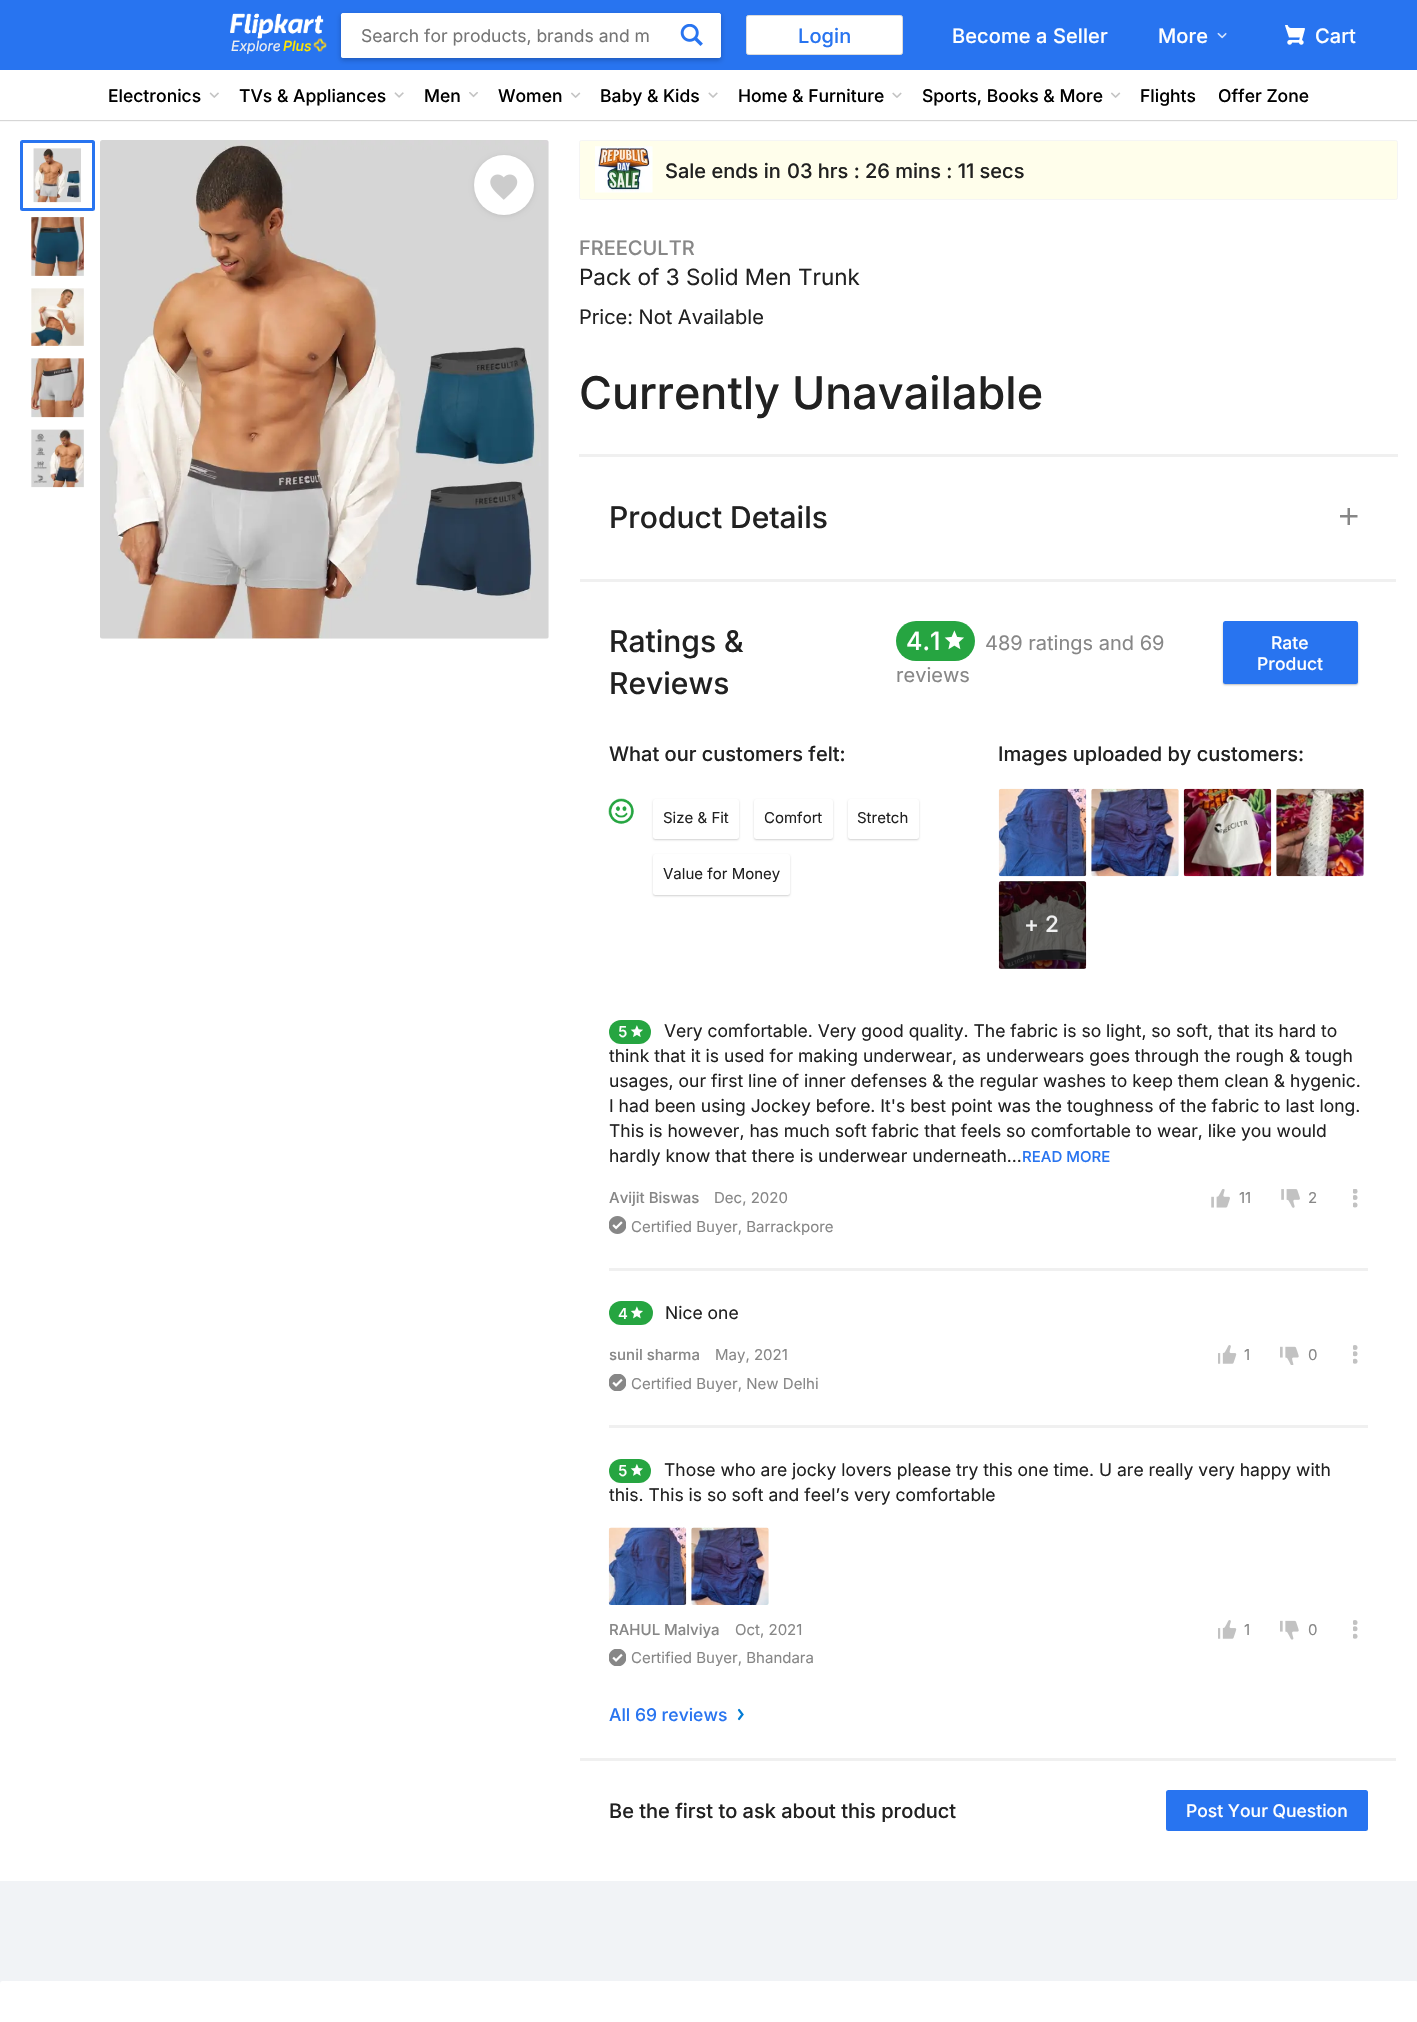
static SkFont makeFont(const char* family, int weight, float size, bool italic = false) {
  SkFontStyle style(weight, SkFontStyle::kNormal_Width,
    italic ? SkFontStyle::kItalic_Slant : SkFontStyle::kUpright_Slant);
  SkFont result(fontMgr->matchFamilyStyle(family, style), size);
  result.setSubpixel(true);
  return result;
}

static void text(SkCanvas* c, const char* s, float x, float y, const SkFont& font, SkColor color) {
  SkPaint ink(SkColor4f::FromColor(color));
  ink.setAntiAlias(true);
  c->drawString(s, x, y, font, ink);
}

static void spacedText(SkCanvas* c, const char* s, float x, float y, const SkFont& font, const SkPaint& ink, float letter, float word) {
  std::vector<SkGlyphID> glyphs(font.countText(s, strlen(s), SkTextEncoding::kUTF8));
  std::vector<float> xs(glyphs.size());
  font.textToGlyphs(s, strlen(s), SkTextEncoding::kUTF8, glyphs);
  font.getXPos(glyphs, xs, x);
  float extra = 0;
  for (size_t i = 0; i < glyphs.size(); i++) {
    xs[i] += extra;
    extra += letter + word * (glyphs[i] == font.unicharToGlyph(' '));
  }
  c->drawTextBlob(SkTextBlob::MakeFromPosHGlyphs(glyphs, xs, y, font), 0, 0, ink);
}

static void box(SkCanvas* c, float l, float t, float r, float b, SkColor color) {
  SkPaint ink(SkColor4f::FromColor(color));
  ink.setAntiAlias(true);
  c->drawRect(SkRect::MakeLTRB(l, t, r, b), ink);
}

static void roundBox(SkCanvas* c, float l, float t, float r, float b, float radius, SkColor color) {
  SkPaint ink(SkColor4f::FromColor(color));
  ink.setAntiAlias(true);
  c->drawRoundRect(SkRect::MakeLTRB(l, t, r, b), radius, radius, ink);
}

static void picture(SkCanvas* c, const char* path, float l, float t, float r, float b) {
  auto image = SkImages::DeferredFromEncodedData(SkData::MakeFromFileName(path));
  c->drawImageRect(image, SkRect::MakeLTRB(l, t, r, b), SkSamplingOptions());
}

void draw(SkCanvas* c) {
  SkPaint paint;
  paint.setAntiAlias(true);
  c->clear(0xfff1f3f6);
  box(c, 0, 120, 1417, 1881, 0xffffffff);
  paint.setColor(0x29000000);
  paint.setMaskFilter(SkMaskFilter::MakeBlur(kNormal_SkBlurStyle, 0.5f));
  c->drawRect(SkRect::MakeLTRB(0, 71, 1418, 121), paint);
  paint.setMaskFilter(nullptr);
  box(c, 0, 0, 1417, 70, 0xff2874f0);
  paint.setColor(0x3b000000);
  paint.setMaskFilter(SkMaskFilter::MakeBlur(kNormal_SkBlurStyle, 2.5f));
  c->drawRect(SkRect::MakeLTRB(341, 15, 721, 60), paint);
  paint.setMaskFilter(nullptr);
  roundBox(c, 341, 13, 721, 58, 2.5f, 0xffffffff);
  paint.setColor(0xffffffff);
  c->drawPath(SkPathBuilder().moveTo(343.5f, 13).lineTo(669, 13).lineTo(669, 58).lineTo(343.5f, 58).cubicTo(342, 58, 341, 57, 341, 55.5f).lineTo(341, 15.5f).cubicTo(341, 14, 342, 13, 343.5f, 13).close().detach(), paint);
  SkFont face1 = makeFont("Inter", 400, 17.5f);
  text(c, "Search for products, brands and m", 361, 42, face1, 0xff757575);
  c->drawRoundRect(SkRect::MakeLTRB(669.5f, 13.5f, 720.5f, 57.5f), 2, 2, paint);
  paint.setStyle(SkPaint::kStroke_Style);
  paint.setStrokeWidth(1);
  c->drawRoundRect(SkRect::MakeLTRB(669.5f, 13.5f, 720.5f, 57.5f), 2, 2, paint);
  picture(c, "img_01.png", 680, 24, 703, 46);
  paint.setStyle(SkPaint::kFill_Style);
  c->drawRoundRect(SkRect::MakeLTRB(746.5f, 15.5f, 902.5f, 54.5f), 2, 2, paint);
  paint.setStyle(SkPaint::kStroke_Style);
  paint.setColor(0xffdbdbdb);
  c->drawRoundRect(SkRect::MakeLTRB(746.5f, 15.5f, 902.5f, 54.5f), 2, 2, paint);
  SkFont face2 = makeFont("Inter", 500, 20);
  paint.setStyle(SkPaint::kFill_Style);
  paint.setColor(0xff2874f0);
  spacedText(c, "Login", 798, 43, face2, paint, 0.1f, 0);
  paint.setColor(0xffffffff);
  spacedText(c, "Become a Seller", 952, 43, face2, paint, 0.1f, 0);
  spacedText(c, "More", 1158, 43, face2, paint, 0.1f, 0);
  picture(c, "img_02.png", 1217, 32, 1227, 39);
  picture(c, "img_03.png", 1285, 25, 1305, 45);
  spacedText(c, "Cart", 1315, 43, face2, paint, 0.1f, 0);
  picture(c, "img_04.png", 230, 13, 324, 39);
  SkFont face3 = makeFont("Inter", 400, 14, true);
  text(c, "Explore", 231, 51, face3, 0xfff0f0f0);
  SkFont face4 = makeFont("Inter", 500, 14, true);
  text(c, "Plus", 283, 51, face4, 0xffffe500);
  picture(c, "img_05.png", 313, 38, 327, 52);
  box(c, 0, 70, 1417, 120, 0xffffffff);
  SkFont face5 = makeFont("Inter", 500, 17.5f);
  text(c, "Electronics", 108, 102, face5, 0xff000000);
  picture(c, "img_06.png", 209, 92, 219, 98);
  text(c, "TVs & Appliances", 239, 102, face5, 0xff000000);
  picture(c, "img_07.png", 394, 92, 404, 98);
  text(c, "Men", 424, 102, face5, 0xff000000);
  picture(c, "img_08.png", 469, 92, 478, 98);
  text(c, "Women", 498, 102, face5, 0xff000000);
  picture(c, "img_09.png", 571, 92, 581, 98);
  text(c, "Baby & Kids", 600, 102, face5, 0xff000000);
  picture(c, "img_10.png", 708, 92, 718, 98);
  text(c, "Home & Furniture", 738, 102, face5, 0xff000000);
  picture(c, "img_11.png", 892, 92, 902, 98);
  text(c, "Sports, Books & More", 922, 102, face5, 0xff000000);
  picture(c, "img_12.png", 1111, 92, 1121, 98);
  text(c, "Flights", 1140, 102, face5, 0xff000000);
  text(c, "Offer Zone", 1218, 102, face5, 0xff000000);
  paint.setStyle(SkPaint::kStroke_Style);
  paint.setStrokeWidth(3);
  paint.setColor(0xff2874f0);
  c->drawRoundRect(SkRect::MakeLTRB(21.5f, 141.5f, 93.5f, 209.5f), 1, 1, paint);
  picture(c, "img_13.png", 33, 148, 81, 203);
  picture(c, "img_14.png", 31, 217, 84, 276);
  picture(c, "img_15.png", 31, 288, 84, 346);
  picture(c, "img_16.png", 31, 358, 84, 418);
  picture(c, "img_17.png", 31, 429, 84, 488);
  picture(c, "img_18.png", 100, 140, 549, 639);
  paint.setStyle(SkPaint::kFill_Style);
  paint.setColor(0x1a000000);
  paint.setMaskFilter(SkMaskFilter::MakeBlur(kNormal_SkBlurStyle, 2.5f));
  c->drawRoundRect(SkRect::MakeLTRB(474, 156, 534, 216), 30, 30, paint);
  paint.setMaskFilter(nullptr);
  paint.setColor(0xffffffff);
  c->drawCircle(504, 185, 30, paint);
  picture(c, "img_19.png", 490, 174, 518, 200);
  paint.setColor(0xfffffeeb);
  c->drawRoundRect(SkRect::MakeLTRB(579.5f, 140.5f, 1397.5f, 199.5f), 2, 2, paint);
  paint.setStyle(SkPaint::kStroke_Style);
  paint.setStrokeWidth(1);
  paint.setColor(0xfff5f5f5);
  c->drawRoundRect(SkRect::MakeLTRB(579.5f, 140.5f, 1397.5f, 199.5f), 2, 2, paint);
  picture(c, "img_20.png", 595, 146, 653, 193);
  text(c, "Sale ends in", 665, 178, face2, 0xff212121);
  text(c, "03 hrs : 26 mins : 11 secs", 787, 178, face2, 0xff212121);
  text(c, "FREECULTR", 579, 255, face2, 0xff878787);
  SkFont face6 = makeFont("Inter", 400, 22.5f);
  text(c, "Pack of 3 Solid Men Trunk", 579, 285, face6, 0xff212121);
  SkFont face7 = makeFont("Inter", 400, 20);
  text(c, "Price: Not Available", 579, 324, face7, 0xff212121);
  SkFont face8 = makeFont("Inter", 500, 45);
  text(c, "Currently Unavailable", 579, 409, face8, 0xff212121);
  box(c, 579, 454, 1398, 457, 0xfff0f0f0);
  SkFont face9 = makeFont("Inter", 500, 30);
  text(c, "Product Details", 609, 528, face9, 0xff212121);
  picture(c, "img_21.png", 1340, 508, 1358, 525);
  box(c, 580, 579, 1396, 582, 0xfff0f0f0);
  text(c, "Ratings &", 609, 652, face9, 0xff212121);
  text(c, "Reviews", 609, 694, face9, 0xff212121);
  roundBox(c, 896, 621, 975, 661, 20, 0xff26a541);
  SkFont face10 = makeFont("Inter", 500, 25);
  text(c, "4.1", 906, 650, face10, 0xffffffff);
  picture(c, "img_22.png", 944, 630, 964, 650);
  text(c, "489 ratings and 69", 985, 650, face7, 0xff878787);
  text(c, "reviews", 896, 682, face7, 0xff878787);
  paint.setStyle(SkPaint::kFill_Style);
  paint.setColor(0x42000000);
  paint.setMaskFilter(SkMaskFilter::MakeBlur(kNormal_SkBlurStyle, 1));
  c->drawRoundRect(SkRect::MakeLTRB(1223, 623, 1358, 685), 2.5f, 2.5f, paint);
  paint.setMaskFilter(nullptr);
  roundBox(c, 1223, 621, 1358, 684, 2.5f, 0xff2874f0);
  text(c, "Rate", 1271, 649, face5, 0xffffffff);
  text(c, "Product", 1257, 670, face5, 0xffffffff);
  text(c, "What our customers felt:", 609, 761, face2, 0xff212121);
  picture(c, "img_23.png", 608, 798, 634, 824);
  paint.setColor(0x2e000000);
  paint.setMaskFilter(SkMaskFilter::MakeBlur(kNormal_SkBlurStyle, 1));
  c->drawRoundRect(SkRect::MakeLTRB(653, 800, 739, 840), 2.5f, 2.5f, paint);
  paint.setMaskFilter(nullptr);
  roundBox(c, 653, 799, 739, 839, 2.5f, 0xffffffff);
  SkFont face11 = makeFont("Inter", 400, 15);
  text(c, "Size & Fit", 663, 823, face11, 0xff212121);
  paint.setMaskFilter(SkMaskFilter::MakeBlur(kNormal_SkBlurStyle, 1));
  c->drawRoundRect(SkRect::MakeLTRB(754, 800, 833, 840), 2.5f, 2.5f, paint);
  paint.setMaskFilter(nullptr);
  roundBox(c, 754, 799, 833, 839, 2.5f, 0xffffffff);
  text(c, "Comfort", 764, 823, face11, 0xff212121);
  paint.setMaskFilter(SkMaskFilter::MakeBlur(kNormal_SkBlurStyle, 1));
  c->drawRoundRect(SkRect::MakeLTRB(848, 800, 919, 840), 2.5f, 2.5f, paint);
  paint.setMaskFilter(nullptr);
  roundBox(c, 848, 799, 919, 839, 2.5f, 0xffffffff);
  text(c, "Stretch", 857, 823, face11, 0xff212121);
  paint.setMaskFilter(SkMaskFilter::MakeBlur(kNormal_SkBlurStyle, 1));
  c->drawRoundRect(SkRect::MakeLTRB(653, 855, 790, 896), 2.5f, 2.5f, paint);
  paint.setMaskFilter(nullptr);
  roundBox(c, 653, 854, 790, 895, 2.5f, 0xffffffff);
  text(c, "Value for Money", 663, 879, face11, 0xff212121);
  text(c, "Images uploaded by customers:", 998, 761, face2, 0xff212121);
  picture(c, "img_24.png", 998, 788, 1087, 877);
  picture(c, "img_25.png", 1091, 788, 1179, 877);
  picture(c, "img_26.png", 1183, 788, 1272, 877);
  picture(c, "img_27.png", 1276, 788, 1364, 877);
  picture(c, "img_28.png", 998, 881, 1087, 969);
  roundBox(c, 999, 881, 1086, 969, 2.5f, 0x99000000);
  SkFont face12 = makeFont("Inter", 500, 22.5f);
  text(c, "+ 2", 1024, 932, face12, 0xfff0f0f0);
  box(c, 609, 1268, 1368, 1271, 0xfff0f0f0);
  roundBox(c, 609, 1020, 651, 1044, 12, 0xff26a541);
  SkFont face13 = makeFont("Inter", 500, 15);
  text(c, "5", 618, 1037, face13, 0xffffffff);
  picture(c, "img_29.png", 630, 1025, 643, 1037);
  text(c, "Very comfortable. Very good quality. The fabric is so light, so soft, that its hard to", 664, 1037, face1, 0xff212121);
  text(c, "think that it is used for making underwear, as underwears goes through the rough & tough", 609, 1062, face1, 0xff212121);
  text(c, "usages, our first line of inner defenses & the regular washes to keep them clean & hygenic.", 609, 1087, face1, 0xff212121);
  text(c, "I had been using Jockey before. It's best point was the toughness of the fabric to last long.", 609, 1112, face1, 0xff212121);
  text(c, "This is however, has much soft fabric that feels so comfortable to wear, like you would", 609, 1137, face1, 0xff212121);
  text(c, "hardly know that there is underwear underneath...", 609, 1162, face1, 0xff212121);
  text(c, "READ MORE", 1022, 1162, face13, 0xff2874f0);
  text(c, "Avijit Biswas", 609, 1203, face13, 0xff878787);
  text(c, "Dec, 2020", 714, 1203, face11, 0xff878787);
  picture(c, "img_30.png", 1211, 1189, 1230, 1208);
  text(c, "11", 1239, 1203, face11, 0xff878787);
  picture(c, "img_31.png", 1281, 1189, 1300, 1208);
  text(c, "2", 1308, 1203, face11, 0xff878787);
  c->save();
  c->clipRect(SkRect::MakeLTRB(1353, 1189, 1358, 1208));
  paint.setColor(0xffc2c2c2);
  c->drawCircle(1355, 1191.2f, 2.5f, paint);
  c->drawCircle(1355, 1197.5f, 2.5f, paint);
  c->drawCircle(1355, 1205, 2.5f, paint);
  c->restore();
  picture(c, "img_32.png", 609, 1216, 626, 1234);
  text(c, "Certified Buyer, Barrackpore", 631, 1232, face11, 0xff878787);
  box(c, 609, 1425, 1368, 1428, 0xfff0f0f0);
  roundBox(c, 609, 1301, 653, 1325, 12, 0xff26a541);
  text(c, "4", 618, 1319, face13, 0xffffffff);
  picture(c, "img_33.png", 630, 1306, 643, 1319);
  text(c, "Nice one", 665, 1319, face1, 0xff212121);
  text(c, "sunil sharma", 609, 1360, face13, 0xff878787);
  text(c, "May, 2021", 715, 1360, face11, 0xff878787);
  picture(c, "img_34.png", 1218, 1345, 1237, 1364);
  text(c, "1", 1244, 1360, face11, 0xff878787);
  picture(c, "img_35.png", 1280, 1346, 1299, 1365);
  text(c, "0", 1308, 1360, face11, 0xff878787);
  c->save();
  c->clipRect(SkRect::MakeLTRB(1353, 1345, 1358, 1364));
  c->drawCircle(1355, 1347.5f, 2.5f, paint);
  c->drawCircle(1355, 1353.8f, 2.5f, paint);
  c->drawCircle(1355, 1361.2f, 2.5f, paint);
  c->restore();
  picture(c, "img_36.png", 609, 1374, 626, 1391);
  text(c, "Certified Buyer, New Delhi", 631, 1389, face11, 0xff878787);
  roundBox(c, 609, 1459, 651, 1483, 12, 0xff26a541);
  text(c, "5", 618, 1476, face13, 0xffffffff);
  picture(c, "img_37.png", 630, 1464, 643, 1476);
  text(c, "Those who are jocky lovers please try this one time. U are really very happy with", 664, 1476, face1, 0xff212121);
  text(c, "this. This is so soft and feel’s very comfortable", 609, 1501, face1, 0xff212121);
  picture(c, "img_38.png", 608, 1527, 687, 1605);
  picture(c, "img_39.png", 691, 1527, 769, 1605);
  text(c, "RAHUL Malviya", 609, 1635, face13, 0xff878787);
  text(c, "Oct, 2021", 735, 1635, face11, 0xff878787);
  picture(c, "img_34.png", 1218, 1620, 1237, 1639);
  text(c, "1", 1244, 1635, face11, 0xff878787);
  picture(c, "img_40.png", 1280, 1620, 1299, 1640);
  text(c, "0", 1308, 1635, face11, 0xff878787);
  c->save();
  c->clipRect(SkRect::MakeLTRB(1353, 1620, 1358, 1639));
  c->drawCircle(1355, 1622.5f, 2.5f, paint);
  c->drawCircle(1355, 1628.8f, 2.5f, paint);
  c->drawCircle(1355, 1636.2f, 2.5f, paint);
  c->restore();
  picture(c, "img_36.png", 609, 1649, 626, 1666);
  text(c, "Certified Buyer, Bhandara", 631, 1663, face11, 0xff878787);
  text(c, "All 69 reviews", 609, 1721, face5, 0xff2874f0);
  paint.setStyle(SkPaint::kStroke_Style);
  paint.setStrokeWidth(2.2f);
  paint.setStrokeCap(SkPaint::kRound_Cap);
  paint.setColor(0xff027cd5);
  c->drawPath(SkPathBuilder().moveTo(739, 1710).lineTo(742.5f, 1714.5f).lineTo(739, 1719).detach(), paint);
  box(c, 580, 1758, 1396, 1761, 0xfff0f0f0);
  text(c, "Be the first to ask about this product", 609, 1818, face2, 0xff212121);
  roundBox(c, 1166, 1790, 1368, 1831, 2.5f, 0xff2874f0);
  text(c, "Post Your Question", 1186, 1817, face5, 0xffffffff);
  roundBox(c, 0, 1981, 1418, 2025, 2.5f, 0xffffffff);
}
